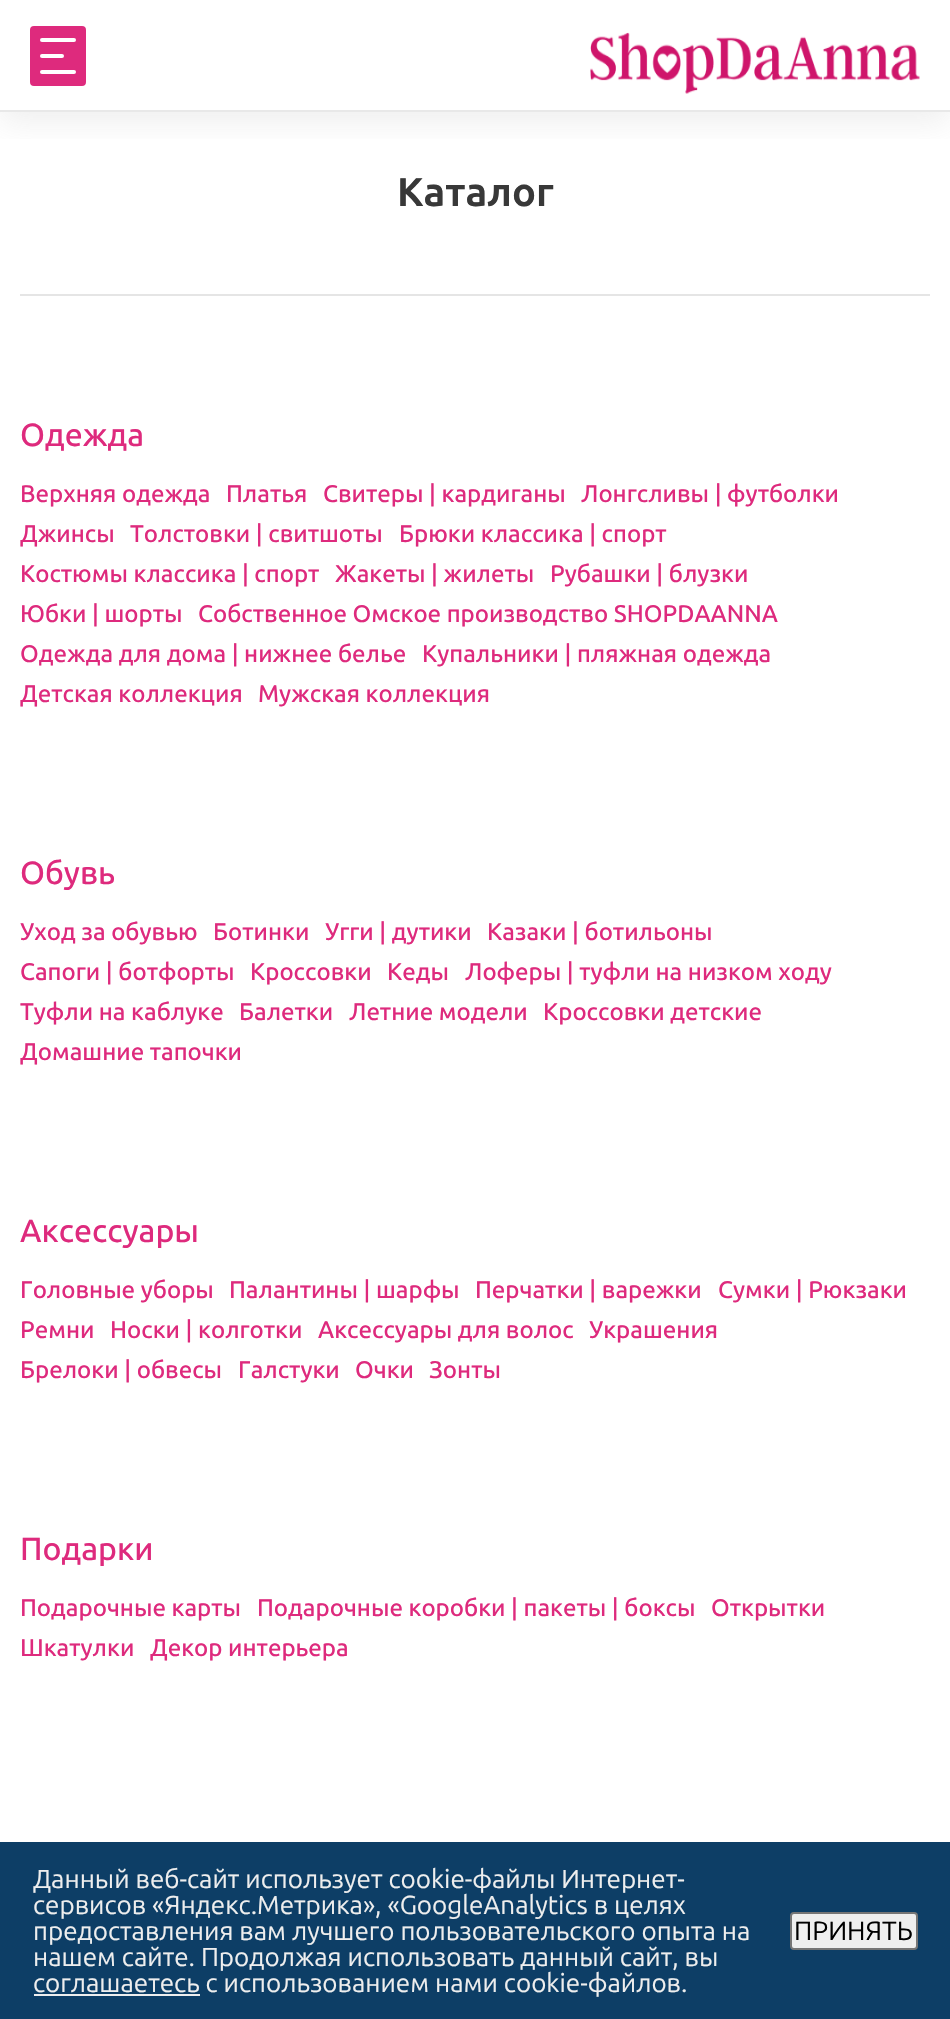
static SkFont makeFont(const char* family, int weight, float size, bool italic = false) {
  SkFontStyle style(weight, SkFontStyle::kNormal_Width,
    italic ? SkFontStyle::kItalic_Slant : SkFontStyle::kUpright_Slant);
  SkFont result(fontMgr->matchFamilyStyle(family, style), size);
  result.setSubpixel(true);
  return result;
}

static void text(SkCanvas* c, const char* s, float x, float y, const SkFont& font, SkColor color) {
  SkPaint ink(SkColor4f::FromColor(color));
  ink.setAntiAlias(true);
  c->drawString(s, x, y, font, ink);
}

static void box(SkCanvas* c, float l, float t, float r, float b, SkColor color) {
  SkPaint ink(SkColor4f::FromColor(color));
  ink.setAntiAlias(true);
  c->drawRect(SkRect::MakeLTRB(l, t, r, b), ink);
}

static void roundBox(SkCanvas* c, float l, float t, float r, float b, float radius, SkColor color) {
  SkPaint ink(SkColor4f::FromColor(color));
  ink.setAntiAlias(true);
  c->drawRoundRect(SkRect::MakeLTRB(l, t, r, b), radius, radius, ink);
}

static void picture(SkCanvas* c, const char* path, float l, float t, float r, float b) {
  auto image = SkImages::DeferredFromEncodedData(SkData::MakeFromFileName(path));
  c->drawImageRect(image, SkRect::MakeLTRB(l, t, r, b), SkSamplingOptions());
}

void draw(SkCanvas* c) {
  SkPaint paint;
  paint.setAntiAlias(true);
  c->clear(0xffffffff);
  c->save();
  c->clipRect(SkRect::MakeLTRB(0, 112, 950, 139));
  paint.setColor(0x268e8e8e);
  paint.setMaskFilter(SkMaskFilter::MakeBlur(kNormal_SkBlurStyle, 15));
  c->drawRect(SkRect::MakeLTRB(0, 10, 950, 122), paint);
  paint.setMaskFilter(nullptr);
  c->restore();
  box(c, 0, 110, 950, 112, 0xffe8e8e8);
  paint.setColor(0xffde2a7d);
  c->drawRoundRect(SkRect::MakeLTRB(32, 28, 84, 84), 2, 2, paint);
  paint.setStyle(SkPaint::kStroke_Style);
  paint.setStrokeWidth(4);
  c->drawRoundRect(SkRect::MakeLTRB(32, 28, 84, 84), 2, 2, paint);
  roundBox(c, 40, 38, 76, 42, 2, 0xffffffff);
  roundBox(c, 40, 54, 64, 58, 2, 0xffffffff);
  roundBox(c, 40, 70, 76, 74, 2, 0xffffffff);
  picture(c, "img_01.png", 590, 32, 920, 94);
  SkFont face1 = makeFont("Ubuntu", 700, 40);
  text(c, "Каталог", 397, 206, face1, 0xff383838);
  box(c, 20, 294, 930, 296, 0xffe5e5e5);
  SkFont face2 = makeFont("Ubuntu", 500, 32);
  text(c, "Одежда", 20, 446, face2, 0xffde2a7d);
  SkFont face3 = makeFont("Ubuntu", 500, 24);
  text(c, "Верхняя одежда", 20, 502, face3, 0xffde2a7d);
  text(c, "Платья", 226, 502, face3, 0xffde2a7d);
  text(c, "Свитеры | кардиганы", 323, 502, face3, 0xffde2a7d);
  text(c, "Лонгсливы | футболки", 581, 502, face3, 0xffde2a7d);
  text(c, "Джинсы", 20, 542, face3, 0xffde2a7d);
  text(c, "Толстовки | свитшоты", 130, 542, face3, 0xffde2a7d);
  text(c, "Брюки классика | спорт", 399, 542, face3, 0xffde2a7d);
  text(c, "Костюмы классика | спорт", 20, 582, face3, 0xffde2a7d);
  text(c, "Жакеты | жилеты", 335, 582, face3, 0xffde2a7d);
  text(c, "Рубашки | блузки", 550, 582, face3, 0xffde2a7d);
  text(c, "Юбки | шорты", 20, 622, face3, 0xffde2a7d);
  text(c, "Собственное Омское производство SHOPDAANNA", 198, 622, face3, 0xffde2a7d);
  text(c, "Одежда для дома | нижнее белье", 20, 662, face3, 0xffde2a7d);
  text(c, "Купальники | пляжная одежда", 422, 662, face3, 0xffde2a7d);
  text(c, "Детская коллекция", 20, 702, face3, 0xffde2a7d);
  text(c, "Мужская коллекция", 258, 702, face3, 0xffde2a7d);
  text(c, "Обувь", 20, 884, face2, 0xffde2a7d);
  text(c, "Уход за обувью", 20, 940, face3, 0xffde2a7d);
  text(c, "Ботинки", 213, 940, face3, 0xffde2a7d);
  text(c, "Угги | дутики", 325, 940, face3, 0xffde2a7d);
  text(c, "Казаки | ботильоны", 487, 940, face3, 0xffde2a7d);
  text(c, "Сапоги | ботфорты", 20, 980, face3, 0xffde2a7d);
  text(c, "Кроссовки", 250, 980, face3, 0xffde2a7d);
  text(c, "Кеды", 387, 980, face3, 0xffde2a7d);
  text(c, "Лоферы | туфли на низком ходу", 465, 980, face3, 0xffde2a7d);
  text(c, "Туфли на каблуке", 20, 1020, face3, 0xffde2a7d);
  text(c, "Балетки", 239, 1020, face3, 0xffde2a7d);
  text(c, "Летние модели", 349, 1020, face3, 0xffde2a7d);
  text(c, "Кроссовки детские", 543, 1020, face3, 0xffde2a7d);
  text(c, "Домашние тапочки", 20, 1060, face3, 0xffde2a7d);
  text(c, "Аксессуары", 20, 1242, face2, 0xffde2a7d);
  text(c, "Головные уборы", 20, 1298, face3, 0xffde2a7d);
  text(c, "Палантины | шарфы", 229, 1298, face3, 0xffde2a7d);
  text(c, "Перчатки | варежки", 475, 1298, face3, 0xffde2a7d);
  text(c, "Сумки | Рюкзаки", 718, 1298, face3, 0xffde2a7d);
  text(c, "Ремни", 20, 1338, face3, 0xffde2a7d);
  text(c, "Носки | колготки", 110, 1338, face3, 0xffde2a7d);
  text(c, "Аксессуары для волос", 318, 1338, face3, 0xffde2a7d);
  text(c, "Украшения", 589, 1338, face3, 0xffde2a7d);
  text(c, "Брелоки | обвесы", 20, 1378, face3, 0xffde2a7d);
  text(c, "Галстуки", 238, 1378, face3, 0xffde2a7d);
  text(c, "Очки", 355, 1378, face3, 0xffde2a7d);
  text(c, "Зонты", 429, 1378, face3, 0xffde2a7d);
  text(c, "Подарки", 20, 1560, face2, 0xffde2a7d);
  text(c, "Подарочные карты", 20, 1616, face3, 0xffde2a7d);
  text(c, "Подарочные коробки | пакеты | боксы", 257, 1616, face3, 0xffde2a7d);
  text(c, "Открытки", 711, 1616, face3, 0xffde2a7d);
  text(c, "Шкатулки", 20, 1656, face3, 0xffde2a7d);
  text(c, "Декор интерьера", 150, 1656, face3, 0xffde2a7d);
  box(c, 0, 1842, 950, 2019, 0xff0d3e66);
  SkFont face4 = makeFont("Ubuntu", 400, 26);
  text(c, "Данный веб-сайт использует cookie-файлы Интернет-", 33, 1888, face4, 0xffeeeeee);
  text(c, "сервисов «Яндекс.Метрика», «GoogleAnalytics в целях", 33, 1914, face4, 0xffeeeeee);
  text(c, "предоставления вам лучшего пользовательского опыта на", 33, 1940, face4, 0xffeeeeee);
  text(c, "нашем сайте. Продолжая использовать данный сайт, вы", 33, 1966, face4, 0xffeeeeee);
  box(c, 34, 1994, 200, 1996, 0xffeeeeee);
  text(c, "соглашаетесь с использованием нами cookie-файлов.", 33, 1992, face4, 0xffeeeeee);
  paint.setStyle(SkPaint::kFill_Style);
  paint.setColor(0xffefefef);
  c->drawRoundRect(SkRect::MakeLTRB(791, 1913, 917, 1949), 3, 3, paint);
  paint.setStyle(SkPaint::kStroke_Style);
  paint.setStrokeWidth(2);
  paint.setColor(0xff767676);
  c->drawRoundRect(SkRect::MakeLTRB(791, 1913, 917, 1949), 3, 3, paint);
  SkFont face5 = makeFont("Ubuntu", 400, 26.5f);
  text(c, "ПРИНЯТЬ", 794, 1940, face5, 0xff000000);
}
